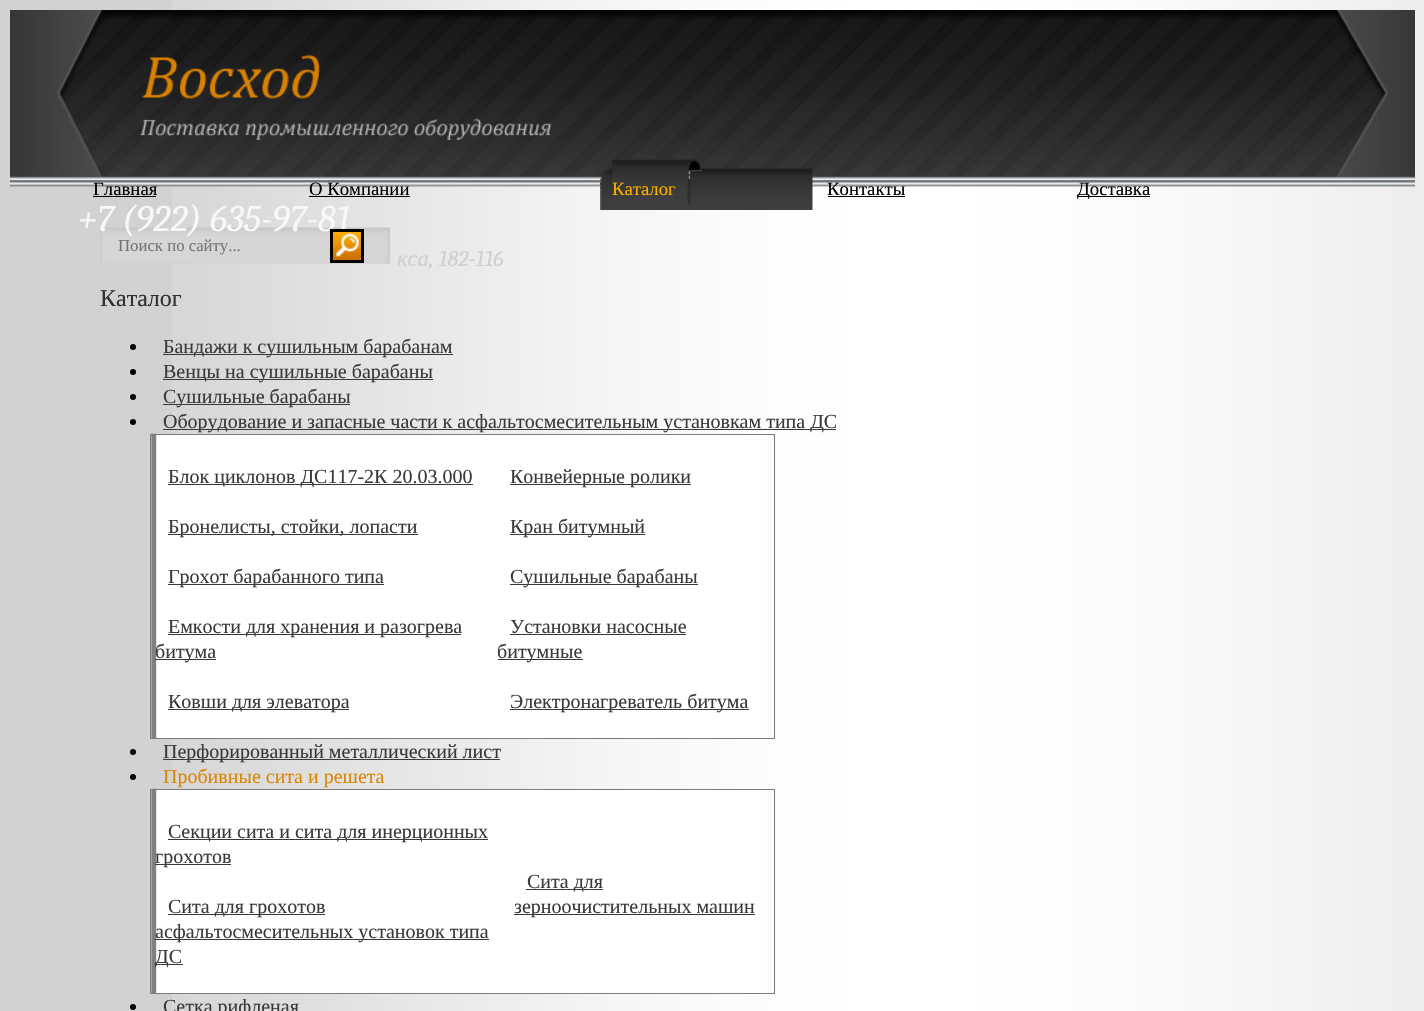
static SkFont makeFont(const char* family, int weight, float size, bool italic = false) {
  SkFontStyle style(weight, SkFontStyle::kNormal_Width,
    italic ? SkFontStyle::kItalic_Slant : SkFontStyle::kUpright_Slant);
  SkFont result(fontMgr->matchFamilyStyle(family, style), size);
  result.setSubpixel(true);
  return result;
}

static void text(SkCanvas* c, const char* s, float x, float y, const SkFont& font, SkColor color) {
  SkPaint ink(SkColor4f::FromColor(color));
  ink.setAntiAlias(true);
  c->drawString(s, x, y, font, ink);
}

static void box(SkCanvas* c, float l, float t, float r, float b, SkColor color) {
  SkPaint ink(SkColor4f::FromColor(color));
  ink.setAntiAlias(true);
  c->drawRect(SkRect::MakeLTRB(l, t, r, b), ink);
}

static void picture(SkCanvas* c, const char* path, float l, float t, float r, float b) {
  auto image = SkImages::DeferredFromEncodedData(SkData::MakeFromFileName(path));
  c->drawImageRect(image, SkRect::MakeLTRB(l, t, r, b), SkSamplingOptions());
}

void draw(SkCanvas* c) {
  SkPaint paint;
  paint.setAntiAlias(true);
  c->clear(0xffd2d2d2);
  picture(c, "img_01.png", 172, 0, 1424, 1011);
  picture(c, "img_02.png", 10, 186, 1415, 187);
  picture(c, "img_03.png", 10, 10, 1415, 187);
  SkFont face1 = makeFont("Liberation Serif", 400, 18.75f);
  text(c, "Главная", 93, 195, face1, 0xff000000);
  box(c, 93, 196, 156, 197, 0xff000000);
  text(c, "О Компании", 309, 195, face1, 0xff000000);
  box(c, 309, 196, 410, 197, 0xff000000);
  picture(c, "img_04.png", 600, 167, 813, 210);
  picture(c, "img_05.png", 612, 159, 702, 204);
  text(c, "Каталог", 612, 195, face1, 0xffffae00);
  text(c, "Контакты", 827, 195, face1, 0xff000000);
  box(c, 828, 196, 905, 197, 0xff000000);
  box(c, 1078, 196, 1150, 197, 0xff000000);
  text(c, "Доставка", 1077, 195, face1, 0xff000000);
  picture(c, "img_06.png", 140, 55, 552, 140);
  picture(c, "img_07.png", 100, 227, 390, 264);
  SkFont face2 = makeFont("Caladea", 400, 37.5f, true);
  text(c, "+7 (922) 635-97-81", 78, 231, face2, 0xfff8f8f8);
  SkFont face3 = makeFont("Liberation Serif", 400, 22.5f, true);
  text(c, "кса", 397, 266, face3, 0xffcfcfcf);
  SkFont face4 = makeFont("Caladea", 400, 22.5f, true);
  text(c, ", 182-116", 429, 266, face4, 0xffcfcfcf);
  SkFont face5 = makeFont("Liberation Serif", 400, 16.75f);
  text(c, "Поиск по сайту...", 118, 251, face5, 0xff757575);
  picture(c, "img_08.png", 333, 232, 361, 260);
  paint.setStyle(SkPaint::kStroke_Style);
  paint.setStrokeWidth(3);
  paint.setColor(0xff000000);
  c->drawRect(SkRect::MakeLTRB(331.5f, 230.5f, 362.5f, 261.5f), paint);
  SkFont face6 = makeFont("Liberation Serif", 400, 24);
  text(c, "Каталог", 100, 306, face6, 0xff2f2f2f);
  paint.setStyle(SkPaint::kFill_Style);
  c->drawCircle(133, 347, 3, paint);
  box(c, 163, 354, 453, 355, 0xff3a3939);
  SkFont face7 = makeFont("Liberation Serif", 400, 20);
  text(c, "Бандажи к сушильным барабанам", 163, 353, face7, 0xff3a3939);
  c->drawCircle(133, 372, 3, paint);
  box(c, 163, 379, 433, 380, 0xff3a3939);
  text(c, "Венцы на сушильные барабаны", 163, 378, face7, 0xff3a3939);
  c->drawCircle(133, 397, 3, paint);
  box(c, 163, 404, 350, 405, 0xff3a3939);
  text(c, "Сушильные барабаны", 163, 403, face7, 0xff3a3939);
  c->drawCircle(133, 422, 3, paint);
  box(c, 163, 429, 836, 430, 0xff3a3939);
  text(c, "Оборудование и запасные части к асфальтосмесительным установкам типа ДС", 163, 428, face7, 0xff3a3939);
  box(c, 151, 435, 766, 738, 0xffffffff);
  picture(c, "img_09.png", 151, 433, 157, 738);
  paint.setStyle(SkPaint::kStroke_Style);
  paint.setStrokeWidth(1);
  paint.setColor(0xff7c7c7c);
  c->drawRect(SkRect::MakeLTRB(150.5f, 434.5f, 774.5f, 738.5f), paint);
  box(c, 168, 484, 473, 485, 0xff3a3939);
  text(c, "Блок циклонов ДС117-2К 20.03.000", 168, 483, face7, 0xff3a3939);
  box(c, 168, 534, 418, 535, 0xff3a3939);
  text(c, "Бронелисты, стойки, лопасти", 168, 533, face7, 0xff3a3939);
  box(c, 168, 584, 384, 585, 0xff3a3939);
  text(c, "Грохот барабанного типа", 168, 583, face7, 0xff3a3939);
  box(c, 168, 634, 461, 635, 0xff3a3939);
  text(c, "Емкости для хранения и разогрева", 168, 633, face7, 0xff3a3939);
  box(c, 155, 659, 216, 660, 0xff3a3939);
  text(c, "битума", 155, 658, face7, 0xff3a3939);
  box(c, 168, 709, 349, 710, 0xff3a3939);
  text(c, "Ковши для элеватора", 168, 708, face7, 0xff3a3939);
  box(c, 510, 484, 691, 485, 0xff3a3939);
  text(c, "Конвейерные ролики", 510, 483, face7, 0xff3a3939);
  box(c, 510, 534, 645, 535, 0xff3a3939);
  text(c, "Кран битумный", 510, 533, face7, 0xff3a3939);
  box(c, 510, 584, 698, 585, 0xff3a3939);
  text(c, "Сушильные барабаны", 510, 583, face7, 0xff3a3939);
  text(c, "Установки насосные", 510, 633, face7, 0xff3a3939);
  box(c, 510, 634, 686, 635, 0xff3a3939);
  box(c, 498, 659, 583, 660, 0xff3a3939);
  text(c, "битумные", 497, 658, face7, 0xff3a3939);
  box(c, 510, 709, 749, 710, 0xff3a3939);
  text(c, "Электронагреватель битума", 510, 708, face7, 0xff3a3939);
  paint.setStyle(SkPaint::kFill_Style);
  paint.setColor(0xff000000);
  c->drawCircle(133, 752, 3, paint);
  box(c, 163, 759, 500, 760, 0xff3a3939);
  text(c, "Перфорированный металлический лист", 163, 758, face7, 0xff3a3939);
  c->drawCircle(133, 777, 3, paint);
  text(c, "Пробивные сита и решета", 163, 783, face7, 0xffdc8501);
  box(c, 151, 790, 766, 993, 0xffffffff);
  picture(c, "img_10.png", 151, 788, 157, 993);
  paint.setStyle(SkPaint::kStroke_Style);
  paint.setColor(0xff7c7c7c);
  c->drawRect(SkRect::MakeLTRB(150.5f, 789.5f, 774.5f, 993.5f), paint);
  box(c, 168, 839, 488, 840, 0xff3a3939);
  text(c, "Секции сита и сита для инерционных", 168, 838, face7, 0xff3a3939);
  box(c, 155, 864, 231, 865, 0xff3a3939);
  text(c, "грохотов", 155, 863, face7, 0xff3a3939);
  box(c, 168, 914, 325, 915, 0xff3a3939);
  text(c, "Сита для грохотов", 168, 913, face7, 0xff3a3939);
  box(c, 155, 939, 489, 940, 0xff3a3939);
  text(c, "асфальтосмесительных установок типа", 155, 938, face7, 0xff3a3939);
  box(c, 155, 964, 183, 965, 0xff3a3939);
  text(c, "ДС", 155, 963, face7, 0xff3a3939);
  box(c, 526, 889, 603, 890, 0xff3a3939);
  text(c, "Сита для", 527, 888, face7, 0xff3a3939);
  box(c, 514, 914, 755, 915, 0xff3a3939);
  text(c, "зерноочистительных машин", 514, 913, face7, 0xff3a3939);
  paint.setStyle(SkPaint::kFill_Style);
  paint.setColor(0xff000000);
  c->drawCircle(133, 1007, 3, paint);
  text(c, "Сетка рифленая", 163, 1013, face7, 0xff3a3939);
}
